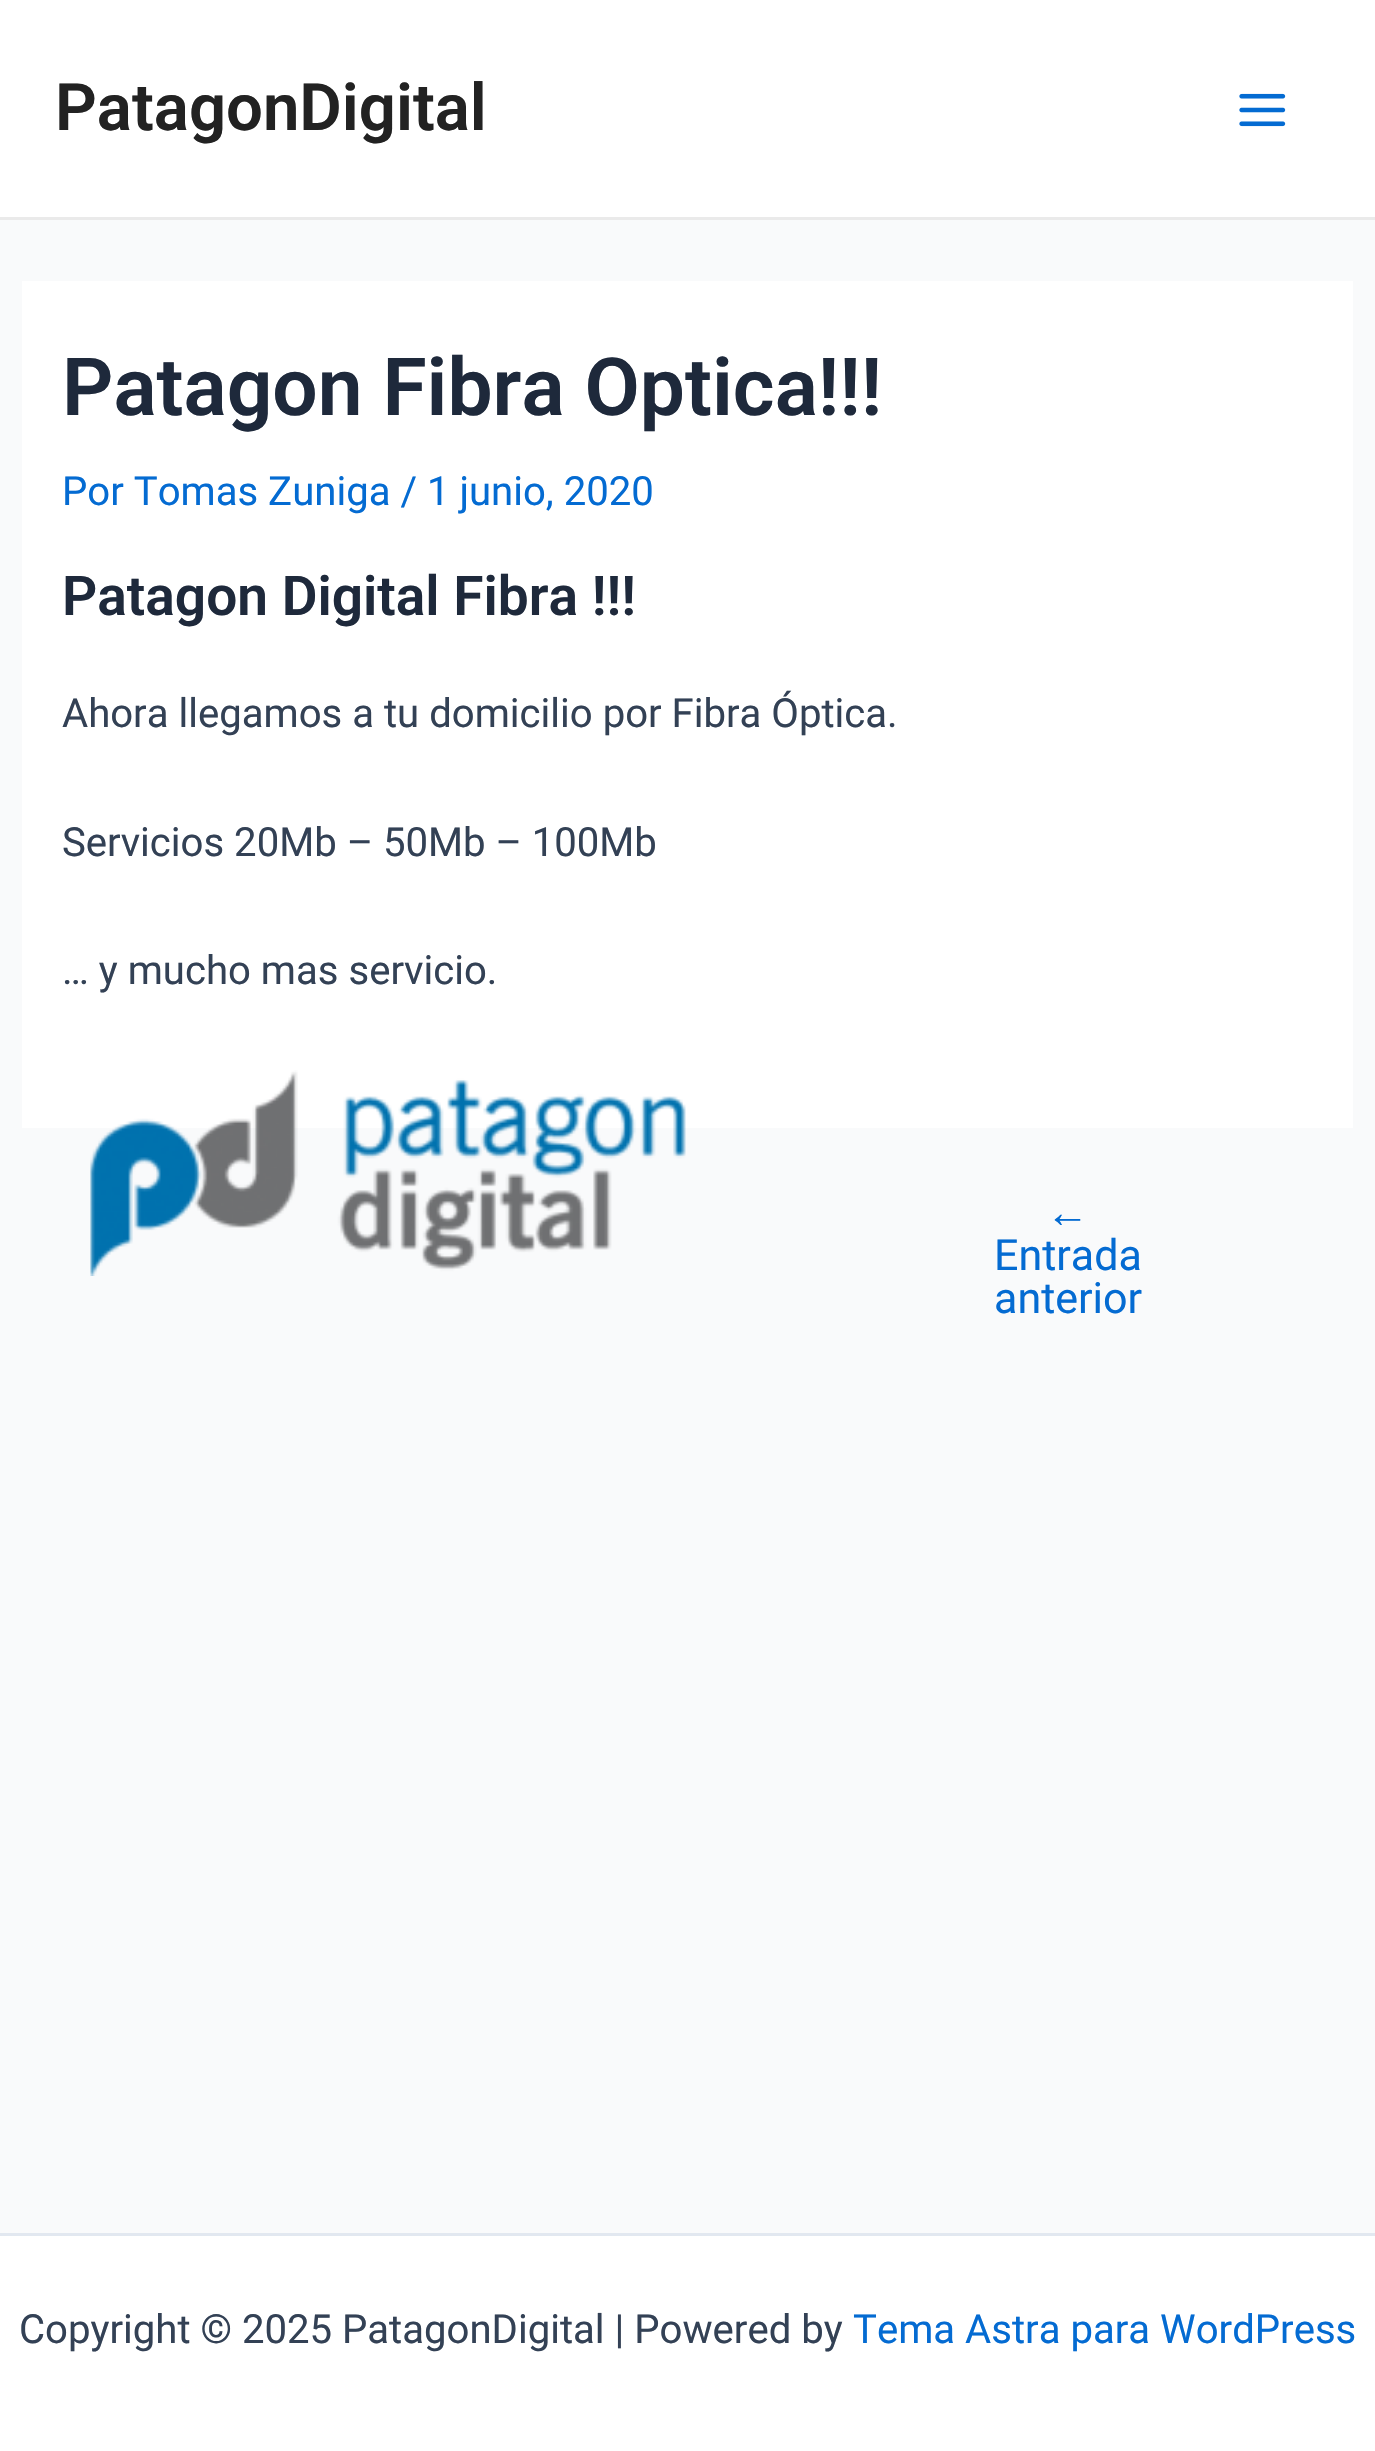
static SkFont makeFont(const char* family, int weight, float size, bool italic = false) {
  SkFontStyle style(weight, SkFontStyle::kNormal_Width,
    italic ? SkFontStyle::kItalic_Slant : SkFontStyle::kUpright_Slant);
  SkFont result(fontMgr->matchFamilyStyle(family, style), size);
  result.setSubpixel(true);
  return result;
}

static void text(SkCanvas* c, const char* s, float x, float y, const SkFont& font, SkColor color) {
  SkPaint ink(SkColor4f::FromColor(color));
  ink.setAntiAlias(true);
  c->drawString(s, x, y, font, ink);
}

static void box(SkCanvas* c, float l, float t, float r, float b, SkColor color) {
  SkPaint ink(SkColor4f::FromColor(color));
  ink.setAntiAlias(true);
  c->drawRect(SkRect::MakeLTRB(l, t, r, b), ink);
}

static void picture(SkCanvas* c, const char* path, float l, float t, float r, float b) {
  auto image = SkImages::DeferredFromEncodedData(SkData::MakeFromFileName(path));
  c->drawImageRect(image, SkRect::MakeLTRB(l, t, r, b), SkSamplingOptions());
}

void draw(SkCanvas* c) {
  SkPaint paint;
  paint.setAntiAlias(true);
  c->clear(0xfff9fafb);
  box(c, 0, 0, 1375, 217, 0xffffffff);
  box(c, 0, 217, 1375, 220, 0xffeaeaea);
  SkFont face1 = makeFont("Roboto", 600, 65.25f);
  text(c, "PatagonDigital", 55, 130, face1, 0xff222222);
  picture(c, "img_01.png", 1239, 93, 1286, 127);
  box(c, 22, 281, 1353, 1128, 0xffffffff);
  SkFont face2 = makeFont("Roboto", 600, 80.25f);
  text(c, "Patagon Fibra Optica!!!", 62, 415, face2, 0xff1e293b);
  SkFont face3 = makeFont("Roboto", 400, 40.1f);
  text(c, "Por Tomas Zuniga / 1 junio, 2020", 62, 505, face3, 0xff046bd2);
  SkFont face4 = makeFont("Roboto", 600, 55);
  text(c, "Patagon Digital Fibra !!!", 62, 615, face4, 0xff1e293b);
  text(c, "Ahora llegamos a tu domicilio por Fibra Óptica.", 62, 727, face3, 0xff334155);
  text(c, "Servicios 20Mb – 50Mb – 100Mb", 62, 856, face3, 0xff334155);
  text(c, "… y mucho mas servicio.", 62, 984, face3, 0xff334155);
  picture(c, "img_02.png", 90, 1070, 686, 1276);
  SkFont face5 = makeFont("Liberation Sans", 400, 43);
  text(c, "←", 1046, 1227, face5, 0xff046bd2);
  SkFont face6 = makeFont("Roboto", 400, 43);
  text(c, "Entrada", 994, 1270, face6, 0xff046bd2);
  text(c, "anterior", 994, 1313, face6, 0xff046bd2);
  box(c, 0, 2236, 1375, 2451, 0xffffffff);
  box(c, 0, 2233, 1375, 2236, 0xffe2e8f0);
  text(c, "Copyright © 2025 PatagonDigital | Powered by", 19, 2343, face3, 0xff334155);
  text(c, "Tema Astra para WordPress", 853, 2343, face3, 0xff046bd2);
}
